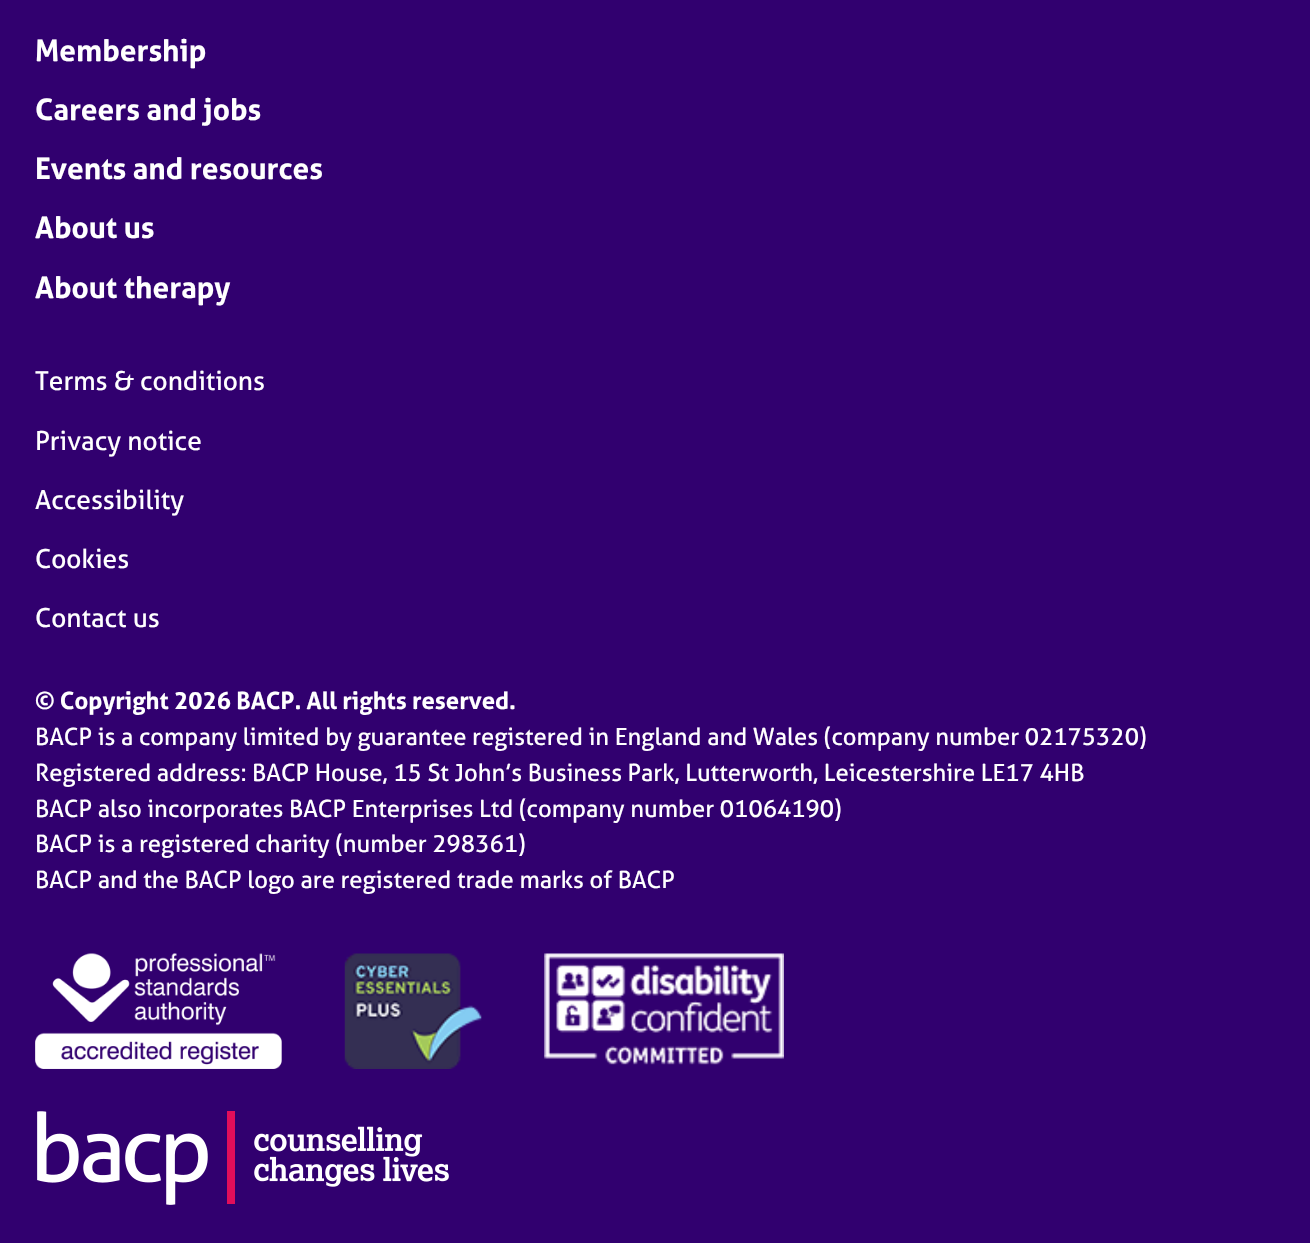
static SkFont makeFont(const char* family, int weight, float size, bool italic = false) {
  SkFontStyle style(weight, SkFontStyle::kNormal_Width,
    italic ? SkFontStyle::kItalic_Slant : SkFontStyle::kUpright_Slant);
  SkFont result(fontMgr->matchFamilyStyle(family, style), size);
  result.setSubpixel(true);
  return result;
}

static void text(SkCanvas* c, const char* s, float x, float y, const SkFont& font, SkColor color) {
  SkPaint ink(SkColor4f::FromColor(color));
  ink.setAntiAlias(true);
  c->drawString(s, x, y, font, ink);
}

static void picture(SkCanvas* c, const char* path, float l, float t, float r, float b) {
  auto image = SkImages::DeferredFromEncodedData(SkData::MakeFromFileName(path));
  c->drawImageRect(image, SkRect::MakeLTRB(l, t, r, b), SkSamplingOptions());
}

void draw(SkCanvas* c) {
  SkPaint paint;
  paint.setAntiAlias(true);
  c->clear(0xff31006f);
  SkFont face1 = makeFont("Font", 700, 29.75f);
  text(c, "Membership", 35, 61, face1, 0xffffffff);
  text(c, "Careers and jobs", 35, 120, face1, 0xffffffff);
  text(c, "Events and resources", 35, 179, face1, 0xffffffff);
  text(c, "About us", 35, 238, face1, 0xffffffff);
  text(c, "About therapy", 35, 298, face1, 0xffffffff);
  SkFont face2 = makeFont("Font", 400, 26.25f);
  text(c, "Terms & conditions", 35, 390, face2, 0xffffffff);
  text(c, "Privacy notice", 35, 450, face2, 0xffffffff);
  text(c, "Accessibility", 35, 509, face2, 0xffffffff);
  text(c, "Cookies", 35, 568, face2, 0xffffffff);
  text(c, "Contact us", 35, 627, face2, 0xffffffff);
  SkFont face3 = makeFont("Font", 700, 23.8f);
  text(c, "© Copyright 2026 BACP. All rights reserved.", 35, 709, face3, 0xffffffff);
  SkFont face4 = makeFont("Font", 400, 23.8f);
  text(c, "BACP is a company limited by guarantee registered in England and Wales (company number 02175320)", 35, 745, face4, 0xffffffff);
  text(c, "Registered address: BACP House, 15 St John’s Business Park, Lutterworth, Leicestershire LE17 4HB", 35, 781, face4, 0xffffffff);
  text(c, "BACP also incorporates BACP Enterprises Ltd (company number 01064190)", 35, 817, face4, 0xffffffff);
  text(c, "BACP is a registered charity (number 298361)", 35, 852, face4, 0xffffffff);
  text(c, "BACP and the BACP logo are registered trade marks of BACP", 35, 888, face4, 0xffffffff);
  picture(c, "img_01.png", 35, 953, 282, 1069);
  picture(c, "img_02.png", 344, 953, 482, 1069);
  picture(c, "img_03.png", 544, 953, 784, 1065);
  picture(c, "img_04.png", 37, 1111, 449, 1205);
}
